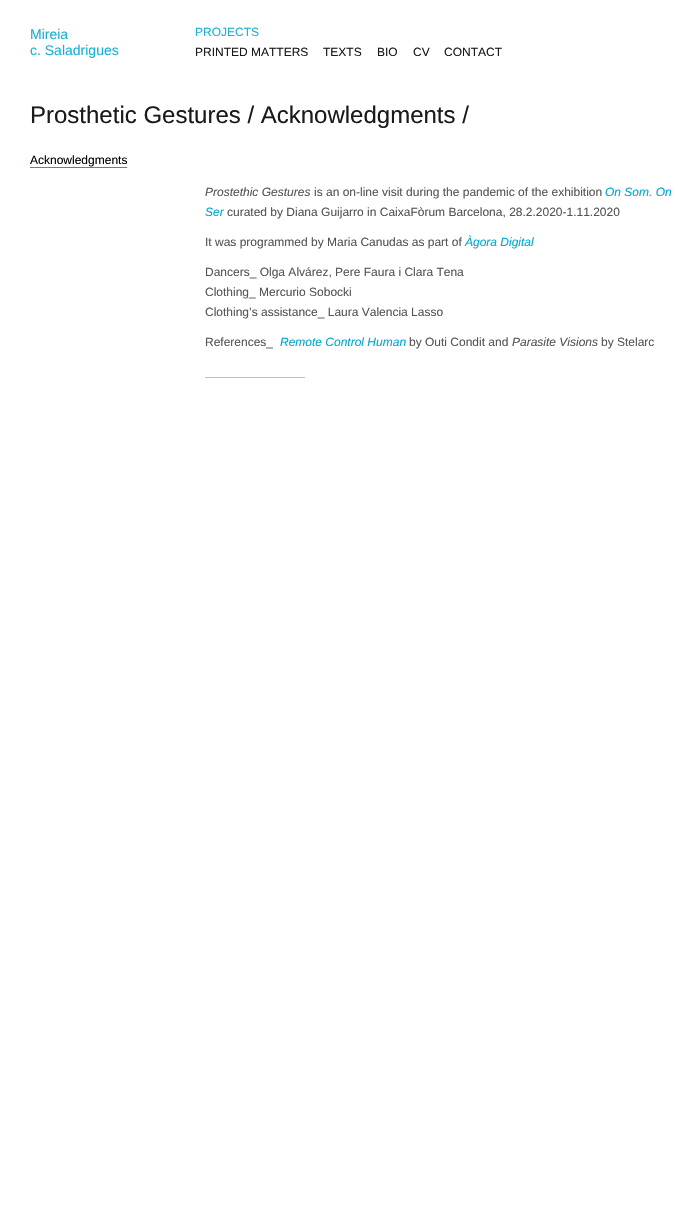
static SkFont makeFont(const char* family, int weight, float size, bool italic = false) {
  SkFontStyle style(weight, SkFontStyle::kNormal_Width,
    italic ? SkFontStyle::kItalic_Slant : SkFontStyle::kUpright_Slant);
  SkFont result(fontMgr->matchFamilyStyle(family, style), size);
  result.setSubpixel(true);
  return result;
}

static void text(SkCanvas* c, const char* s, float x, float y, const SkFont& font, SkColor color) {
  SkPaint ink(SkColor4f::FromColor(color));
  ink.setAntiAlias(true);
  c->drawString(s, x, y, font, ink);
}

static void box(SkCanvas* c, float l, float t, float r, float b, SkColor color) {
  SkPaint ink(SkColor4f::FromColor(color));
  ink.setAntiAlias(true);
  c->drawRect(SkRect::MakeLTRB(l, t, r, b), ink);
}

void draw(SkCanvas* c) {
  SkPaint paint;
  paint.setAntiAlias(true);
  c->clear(0xffffffff);
  SkFont face1 = makeFont("Liberation Sans", 400, 14);
  text(c, "Mireia", 30, 39, face1, 0xff1ab1d3);
  text(c, "c. Saladrigues", 30, 55, face1, 0xff1ab1d3);
  SkFont face2 = makeFont("Liberation Sans", 400, 12);
  text(c, "PROJECTS", 195, 36, face2, 0xff1ab1d3);
  text(c, "PRINTED MATTERS", 195, 56, face2, 0xff1a1a1a);
  text(c, "TEXTS", 323, 56, face2, 0xff1a1a1a);
  text(c, "BIO", 377, 56, face2, 0xff1a1a1a);
  text(c, "CV", 413, 56, face2, 0xff1a1a1a);
  text(c, "CONTACT", 444, 56, face2, 0xff1a1a1a);
  SkFont face3 = makeFont("Liberation Sans", 400, 24);
  text(c, "Prosthetic Gestures / Acknowledgments /", 30, 123, face3, 0xff1a1a1a);
  text(c, "Acknowledgments", 30, 164, face2, 0xff000000);
  box(c, 30, 167, 127, 168, 0xff00a8ce);
  SkFont face4 = makeFont("Liberation Sans", 400, 12, true);
  text(c, "Prostethic Gestures", 205, 196, face4, 0xff555555);
  text(c, "is an on-line visit during the pandemic of the exhibition", 314, 196, face2, 0xff555555);
  text(c, "On Som. On", 605, 196, face4, 0xff00a8ce);
  text(c, "Ser", 205, 216, face4, 0xff00a8ce);
  text(c, "curated by Diana Guijarro in CaixaFòrum Barcelona, 28.2.2020-1.11.2020", 227, 216, face2, 0xff555555);
  text(c, "It was programmed by Maria Canudas as part of", 205, 246, face2, 0xff555555);
  text(c, "Àgora Digital", 465, 246, face4, 0xff00a8ce);
  text(c, "Dancers_ Olga Alvárez, Pere Faura i Clara Tena", 205, 276, face2, 0xff555555);
  text(c, "Clothing_ Mercurio Sobocki", 205, 296, face2, 0xff555555);
  text(c, "Clothing’s assistance_ Laura Valencia Lasso", 205, 316, face2, 0xff555555);
  text(c, "References_", 205, 346, face2, 0xff555555);
  text(c, "Remote Control Human", 280, 346, face4, 0xff00a8ce);
  text(c, "by Outi Condit and", 409, 346, face2, 0xff555555);
  text(c, "Parasite Visions", 512, 346, face4, 0xff555555);
  text(c, "by Stelarc", 601, 346, face2, 0xff555555);
  box(c, 205, 377, 305, 378, 0xffc0c0c0);
}
